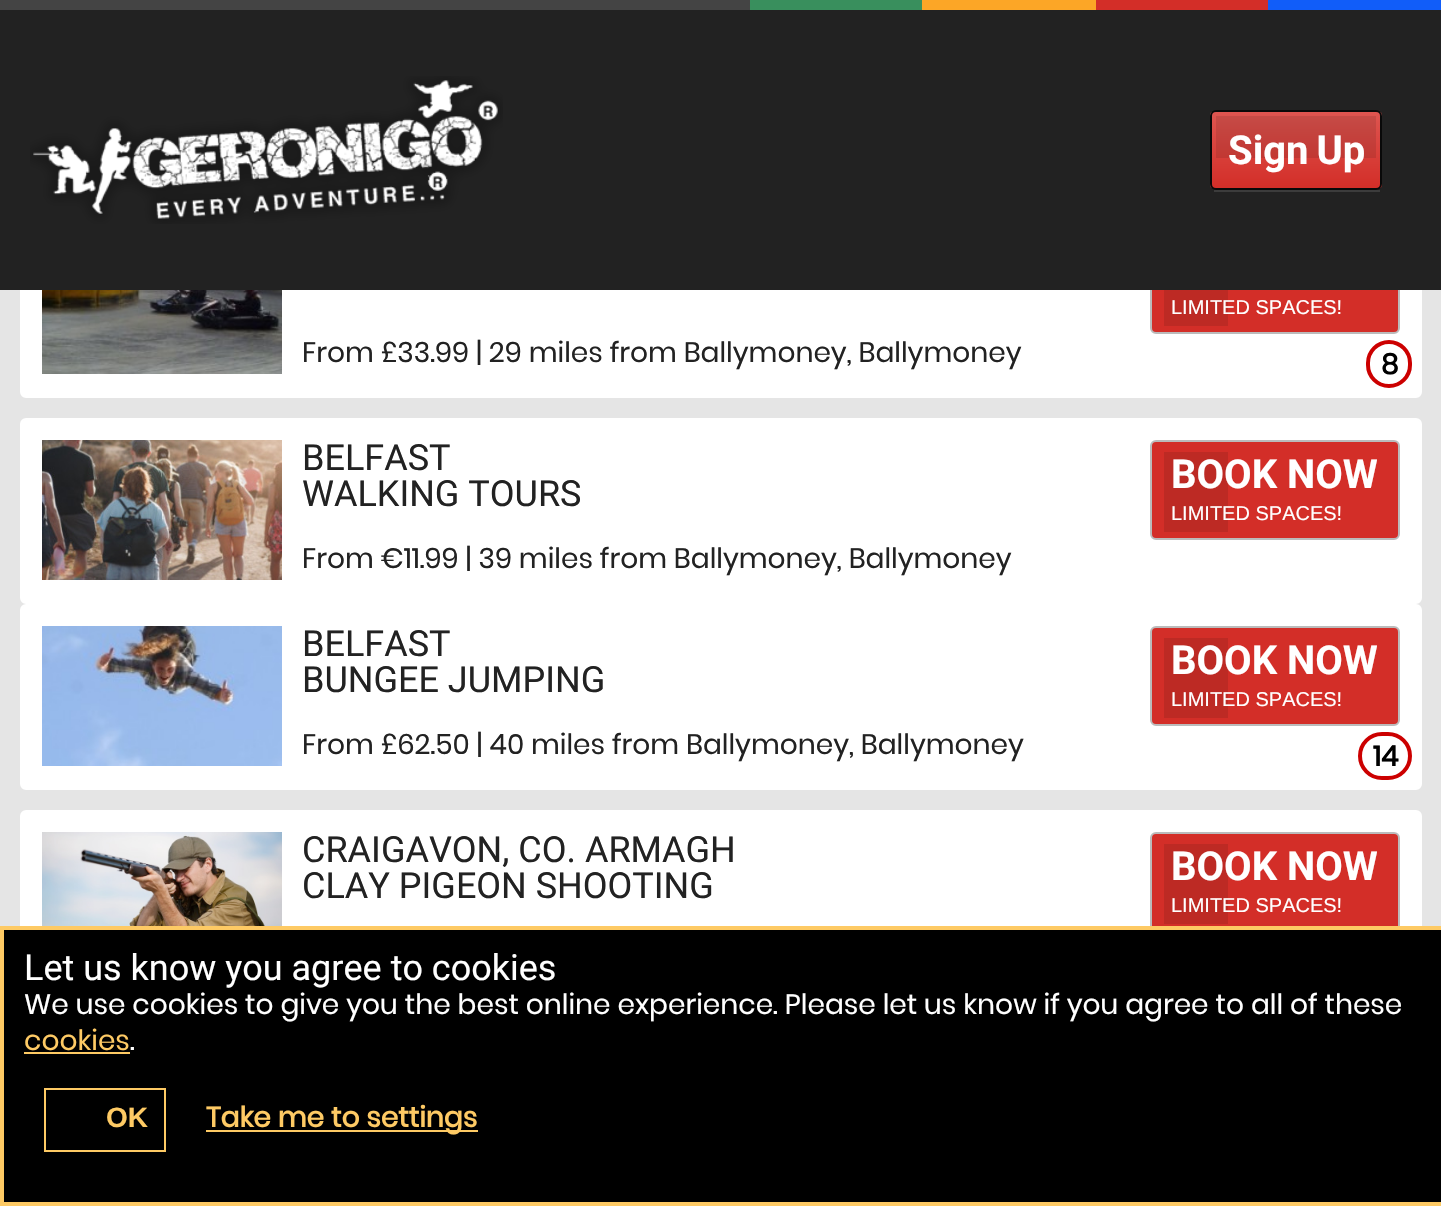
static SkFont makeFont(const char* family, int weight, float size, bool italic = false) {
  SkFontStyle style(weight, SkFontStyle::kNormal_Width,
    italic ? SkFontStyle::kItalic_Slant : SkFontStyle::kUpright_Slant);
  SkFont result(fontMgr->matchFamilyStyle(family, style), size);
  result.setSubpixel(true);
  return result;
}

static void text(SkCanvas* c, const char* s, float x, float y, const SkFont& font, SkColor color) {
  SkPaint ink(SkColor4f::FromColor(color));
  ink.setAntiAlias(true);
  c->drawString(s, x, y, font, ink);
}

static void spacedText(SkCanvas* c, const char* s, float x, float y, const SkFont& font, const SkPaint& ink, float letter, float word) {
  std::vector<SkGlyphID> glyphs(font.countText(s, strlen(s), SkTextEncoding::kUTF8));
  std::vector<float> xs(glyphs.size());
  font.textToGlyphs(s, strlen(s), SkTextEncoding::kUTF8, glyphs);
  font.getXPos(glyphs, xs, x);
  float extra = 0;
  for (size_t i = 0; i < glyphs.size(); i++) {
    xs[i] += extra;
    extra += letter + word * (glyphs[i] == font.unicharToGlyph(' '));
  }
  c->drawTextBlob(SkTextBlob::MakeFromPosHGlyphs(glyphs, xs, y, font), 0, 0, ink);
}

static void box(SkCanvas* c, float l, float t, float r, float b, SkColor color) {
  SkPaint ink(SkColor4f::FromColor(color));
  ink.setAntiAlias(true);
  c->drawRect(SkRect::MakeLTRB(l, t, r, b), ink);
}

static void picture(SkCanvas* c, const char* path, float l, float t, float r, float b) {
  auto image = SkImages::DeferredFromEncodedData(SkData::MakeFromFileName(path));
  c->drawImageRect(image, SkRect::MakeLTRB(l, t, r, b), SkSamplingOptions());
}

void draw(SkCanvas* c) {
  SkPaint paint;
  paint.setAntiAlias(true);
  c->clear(0xffe5e5e5);
  paint.setColor(0xffffffff);
  c->drawRoundRect(SkRect::MakeLTRB(21, 213, 1421, 397), 5, 5, paint);
  paint.setStyle(SkPaint::kStroke_Style);
  paint.setStrokeWidth(2);
  c->drawRoundRect(SkRect::MakeLTRB(21, 213, 1421, 397), 5, 5, paint);
  paint.setStyle(SkPaint::kFill_Style);
  paint.setColor(0xffd32e28);
  c->drawRoundRect(SkRect::MakeLTRB(1151, 235, 1399, 333), 5, 5, paint);
  paint.setStyle(SkPaint::kStroke_Style);
  paint.setColor(0xffbbbbbb);
  c->drawRoundRect(SkRect::MakeLTRB(1151, 235, 1399, 333), 5, 5, paint);
  box(c, 0, 10, 1441, 290, 0xff222222);
  box(c, 0, 0, 750, 10, 0xff444444);
  box(c, 922, 0, 1096, 10, 0xfffca626);
  box(c, 1268, 0, 1441, 10, 0xff115df9);
  box(c, 750, 0, 922, 10, 0xff398f5d);
  box(c, 1096, 0, 1268, 10, 0xffd32e28);
  picture(c, "img_01.png", 30, 76, 503, 224);
  box(c, 1214, 190, 1380, 192, 0xff3c3c3c);
  c->save();
  c->clipPath(SkPathBuilder().moveTo(1216, 110).lineTo(1376, 110).cubicTo(1379.5f, 110, 1382, 112.5f, 1382, 116).lineTo(1382, 184).cubicTo(1382, 187.5f, 1379.5f, 190, 1376, 190).lineTo(1216, 190).cubicTo(1212.5f, 190, 1210, 187.5f, 1210, 184).lineTo(1210, 116).cubicTo(1210, 112.5f, 1212.5f, 110, 1216, 110).close().detach(), true);
  paint.setStyle(SkPaint::kFill_Style);
  {
    const SkColor colors[] = {0xffde5550, 0xffd32e28};
    const float stops[] = {0, 1};
    const SkPoint ends[] = {{1296, 112}, {1296, 188}};
    paint.setShader(SkGradientShader::MakeLinear(ends, colors, stops, 2, SkTileMode::kClamp));
    paint.setAlpha(255);
  }
  c->drawRect(SkRect::MakeLTRB(1210, 112, 1382, 188), paint);
  c->restore();
  paint.setStyle(SkPaint::kStroke_Style);
  paint.setShader(nullptr);
  paint.setColor(0xff090909);
  c->drawRoundRect(SkRect::MakeLTRB(1211, 111, 1381, 189), 5, 5, paint);
  box(c, 1216, 116, 1376, 158, 0x1a000000);
  SkFont face1 = makeFont("Roboto", 700, 40);
  paint.setStyle(SkPaint::kFill_Style);
  paint.setColor(0xffffffff);
  spacedText(c, "Sign Up", 1228, 164, face1, paint, 0, -2);
  picture(c, "img_02.png", 42, 290, 282, 374);
  box(c, 1164, 290, 1228, 326, 0x1a000000);
  SkFont face2 = makeFont("Liberation Sans", 400, 20);
  text(c, "LIMITED SPACES!", 1171, 314, face2, 0xffffffff);
  SkFont face3 = makeFont("Poppins", 400, 28);
  text(c, "From £33.99 | 29 miles from Ballymoney, Ballymoney", 302, 362, face3, 0xff222222);
  paint.setStyle(SkPaint::kStroke_Style);
  paint.setStrokeWidth(4);
  paint.setColor(0xffcc0000);
  c->drawRoundRect(SkRect::MakeLTRB(1368, 342, 1410, 386), 21, 21, paint);
  SkFont face4 = makeFont("Poppins", 700, 28);
  text(c, "8", 1381, 374, face4, 0xff000000);
  paint.setStyle(SkPaint::kFill_Style);
  paint.setColor(0xffffffff);
  c->drawRoundRect(SkRect::MakeLTRB(21, 419, 1421, 603), 5, 5, paint);
  paint.setStyle(SkPaint::kStroke_Style);
  paint.setStrokeWidth(2);
  c->drawRoundRect(SkRect::MakeLTRB(21, 419, 1421, 603), 5, 5, paint);
  picture(c, "img_03.png", 42, 440, 282, 580);
  SkFont face5 = makeFont("Roboto", 400, 36);
  text(c, "BELFAST", 302, 470, face5, 0xff222222);
  text(c, "WALKING TOURS", 302, 506, face5, 0xff222222);
  paint.setStyle(SkPaint::kFill_Style);
  paint.setColor(0xffd32e28);
  c->drawRoundRect(SkRect::MakeLTRB(1151, 441, 1399, 539), 5, 5, paint);
  paint.setStyle(SkPaint::kStroke_Style);
  paint.setColor(0xffbbbbbb);
  c->drawRoundRect(SkRect::MakeLTRB(1151, 441, 1399, 539), 5, 5, paint);
  box(c, 1164, 452, 1228, 532, 0x1a000000);
  text(c, "BOOK NOW", 1171, 488, face1, 0xffffffff);
  text(c, "LIMITED SPACES!", 1171, 520, face2, 0xffffffff);
  text(c, "From €11.99 | 39 miles from Ballymoney, Ballymoney", 302, 568, face3, 0xff222222);
  paint.setStyle(SkPaint::kFill_Style);
  paint.setColor(0xffffffff);
  c->drawRoundRect(SkRect::MakeLTRB(21, 605, 1421, 789), 5, 5, paint);
  paint.setStyle(SkPaint::kStroke_Style);
  c->drawRoundRect(SkRect::MakeLTRB(21, 605, 1421, 789), 5, 5, paint);
  picture(c, "img_04.png", 42, 626, 282, 766);
  text(c, "BELFAST", 302, 656, face5, 0xff222222);
  text(c, "BUNGEE JUMPING", 302, 692, face5, 0xff222222);
  paint.setStyle(SkPaint::kFill_Style);
  paint.setColor(0xffd32e28);
  c->drawRoundRect(SkRect::MakeLTRB(1151, 627, 1399, 725), 5, 5, paint);
  paint.setStyle(SkPaint::kStroke_Style);
  paint.setColor(0xffbbbbbb);
  c->drawRoundRect(SkRect::MakeLTRB(1151, 627, 1399, 725), 5, 5, paint);
  box(c, 1164, 638, 1228, 718, 0x1a000000);
  text(c, "BOOK NOW", 1171, 674, face1, 0xffffffff);
  text(c, "LIMITED SPACES!", 1171, 706, face2, 0xffffffff);
  text(c, "From £62.50 | 40 miles from Ballymoney, Ballymoney", 302, 754, face3, 0xff222222);
  paint.setStrokeWidth(4);
  paint.setColor(0xffcc0000);
  c->drawRoundRect(SkRect::MakeLTRB(1360, 734, 1410, 778), 22, 22, paint);
  text(c, "14", 1373, 766, face4, 0xff000000);
  paint.setStyle(SkPaint::kFill_Style);
  paint.setColor(0xffffffff);
  c->drawRoundRect(SkRect::MakeLTRB(21, 811, 1421, 995), 5, 5, paint);
  paint.setStyle(SkPaint::kStroke_Style);
  paint.setStrokeWidth(2);
  c->drawRoundRect(SkRect::MakeLTRB(21, 811, 1421, 995), 5, 5, paint);
  picture(c, "img_05.png", 42, 832, 282, 926);
  text(c, "CRAIGAVON, CO. ARMAGH", 302, 862, face5, 0xff222222);
  text(c, "CLAY PIGEON SHOOTING", 302, 898, face5, 0xff222222);
  paint.setStyle(SkPaint::kFill_Style);
  paint.setColor(0xffd32e28);
  c->drawRoundRect(SkRect::MakeLTRB(1151, 833, 1399, 931), 5, 5, paint);
  paint.setStyle(SkPaint::kStroke_Style);
  paint.setColor(0xffbbbbbb);
  c->drawRoundRect(SkRect::MakeLTRB(1151, 833, 1399, 931), 5, 5, paint);
  box(c, 1164, 844, 1228, 924, 0x1a000000);
  text(c, "BOOK NOW", 1171, 880, face1, 0xffffffff);
  text(c, "LIMITED SPACES!", 1171, 912, face2, 0xffffffff);
  paint.setStyle(SkPaint::kFill_Style);
  paint.setColor(0xff000000);
  c->drawRect(SkRect::MakeLTRB(2, 928, 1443, 1204), paint);
  paint.setStyle(SkPaint::kStroke_Style);
  paint.setStrokeWidth(4);
  paint.setColor(0xfffeca64);
  c->drawRect(SkRect::MakeLTRB(2, 928, 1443, 1204), paint);
  text(c, "Let us know you agree to cookies", 24, 980, face5, 0xffffffff);
  text(c, "We use cookies to give you the best online experience. Please let us know if you agree to all of these", 24, 1014, face3, 0xffffffff);
  text(c, "cookies", 24, 1050, face3, 0xfffeca64);
  box(c, 24, 1052, 130, 1054, 0xfffeca64);
  text(c, ".", 130, 1050, face3, 0xffffffff);
  paint.setStrokeWidth(2);
  c->drawRect(SkRect::MakeLTRB(45, 1089, 165, 1151), paint);
  SkFont face6 = makeFont("Liberation Sans", 700, 28);
  text(c, "OK", 106, 1127, face6, 0xfffeca64);
  box(c, 206, 1130, 478, 1132, 0xfffeca64);
  text(c, "Take me to settings", 206, 1127, face4, 0xfffeca64);
}
